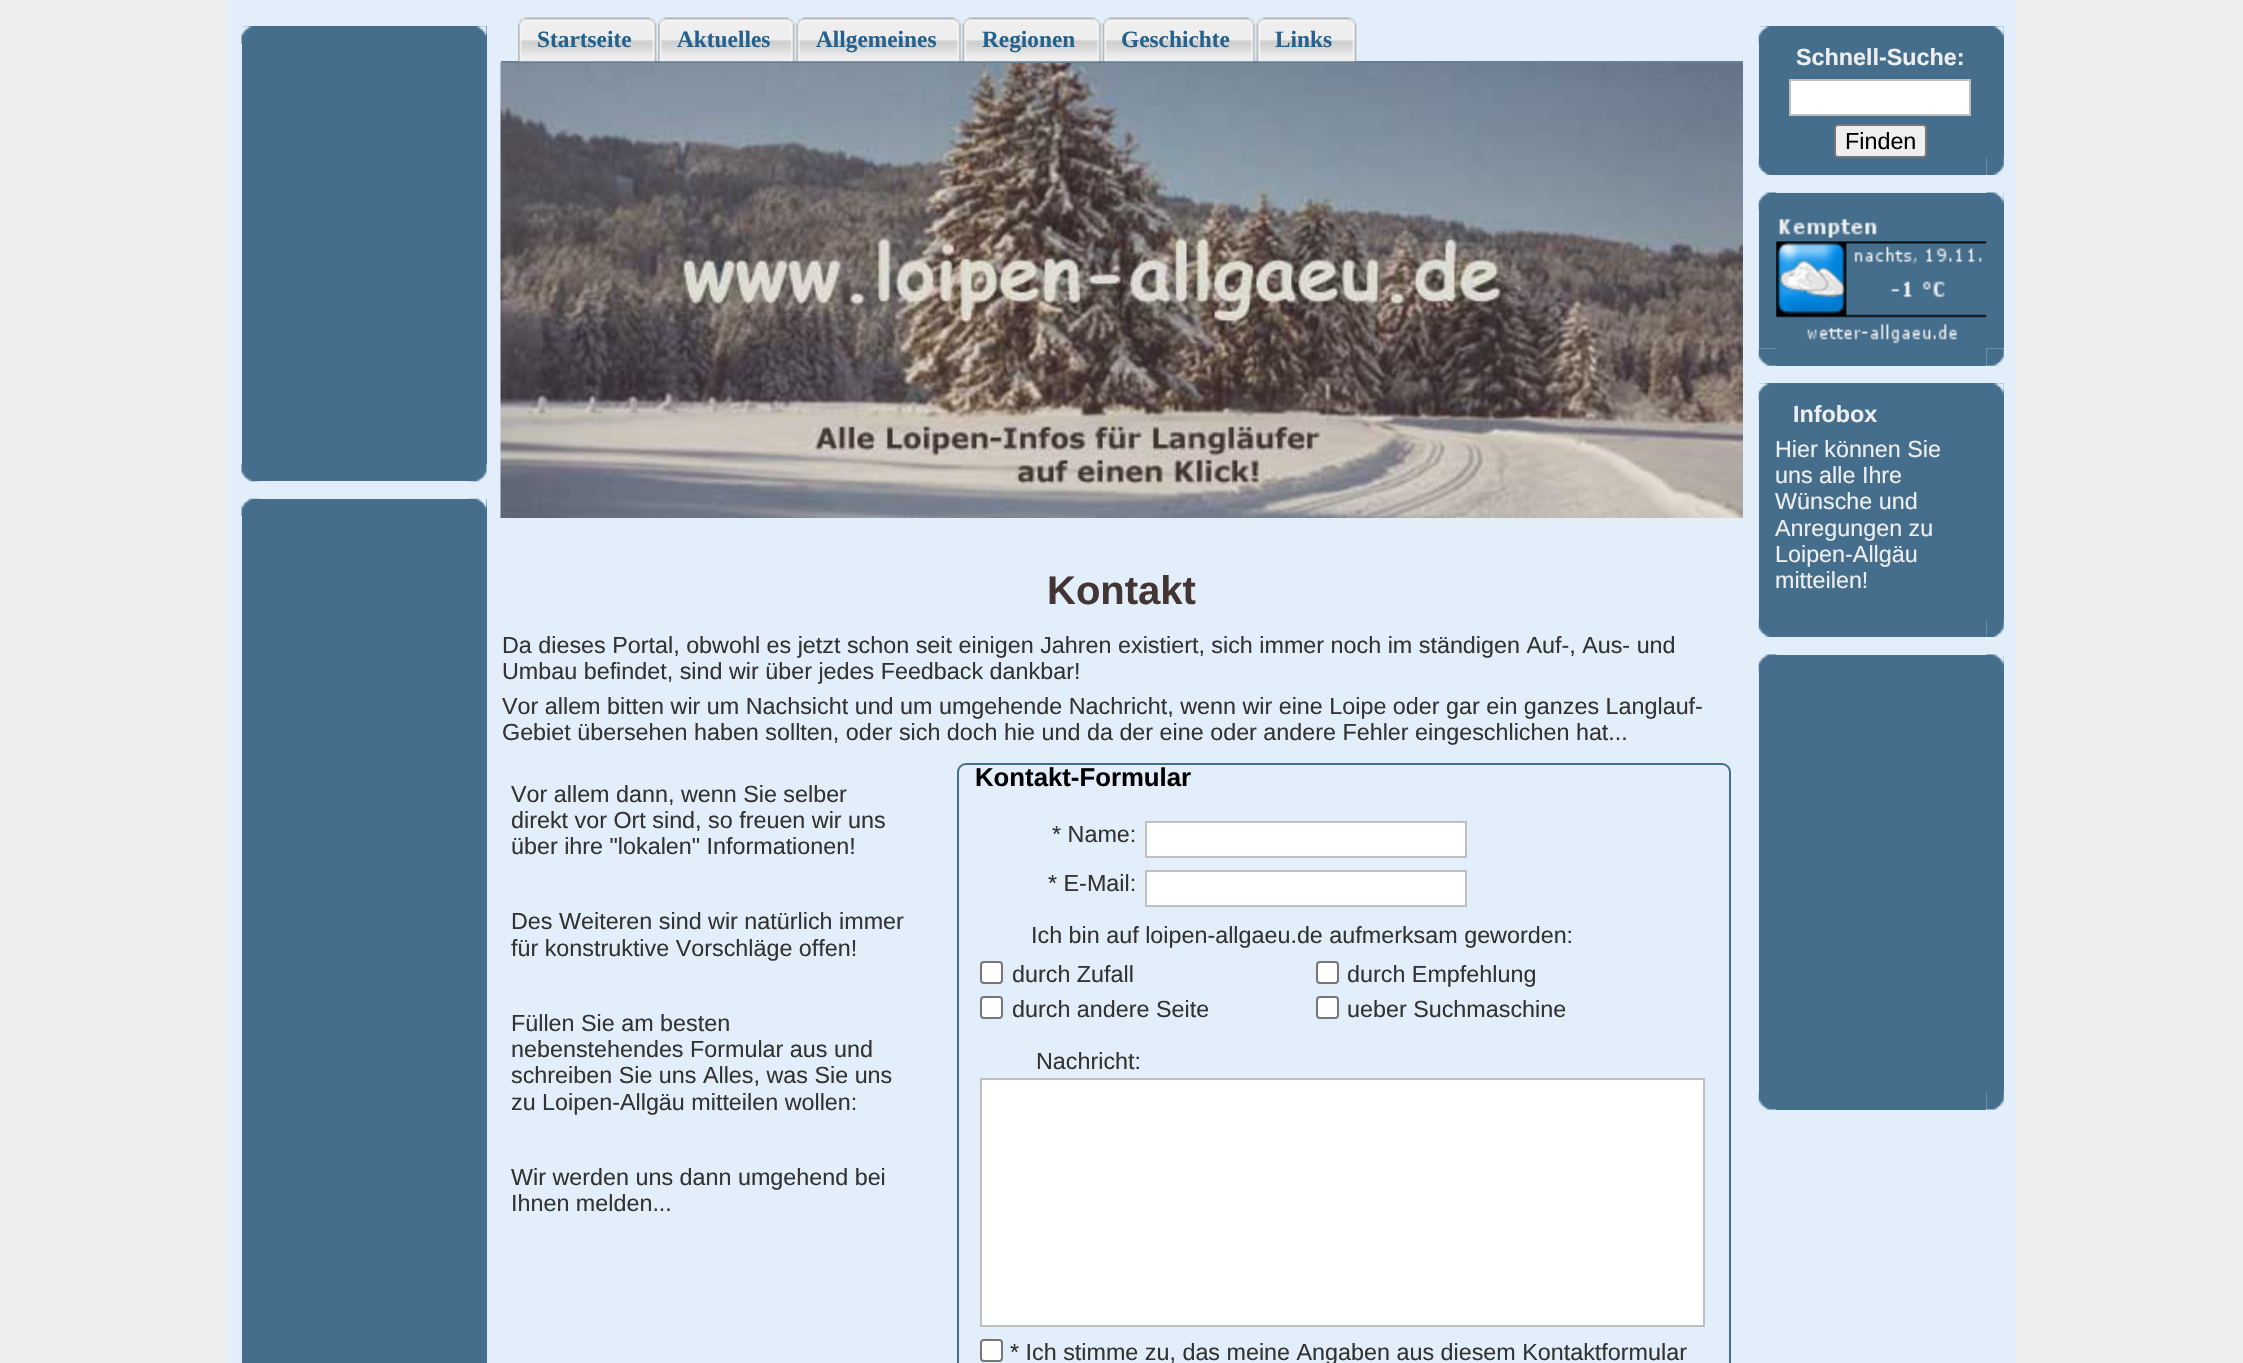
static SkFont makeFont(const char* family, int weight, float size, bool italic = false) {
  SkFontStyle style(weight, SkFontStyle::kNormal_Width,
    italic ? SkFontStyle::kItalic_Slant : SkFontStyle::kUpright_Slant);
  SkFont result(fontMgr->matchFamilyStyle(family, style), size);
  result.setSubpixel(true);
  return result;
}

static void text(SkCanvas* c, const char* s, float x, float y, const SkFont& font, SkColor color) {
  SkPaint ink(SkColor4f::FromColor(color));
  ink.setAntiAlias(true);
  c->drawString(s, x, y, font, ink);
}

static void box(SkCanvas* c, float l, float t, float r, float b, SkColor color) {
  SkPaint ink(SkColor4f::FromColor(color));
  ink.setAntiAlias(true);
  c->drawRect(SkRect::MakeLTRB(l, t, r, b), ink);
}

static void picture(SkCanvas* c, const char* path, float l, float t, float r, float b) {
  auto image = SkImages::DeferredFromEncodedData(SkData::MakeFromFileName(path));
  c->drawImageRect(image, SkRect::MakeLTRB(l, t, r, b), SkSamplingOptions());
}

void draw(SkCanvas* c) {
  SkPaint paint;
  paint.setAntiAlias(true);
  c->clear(0xffeeeeee);
  box(c, 228, 0, 2016, 1363, 0xffe2effb);
  box(c, 242, 26, 487, 464, 0xff446e8c);
  picture(c, "img_01.png", 241, 26, 253, 44);
  picture(c, "img_02.png", 476, 26, 487, 37);
  picture(c, "img_03.png", 241, 463, 259, 482);
  box(c, 259, 464, 469, 481, 0xff446e8c);
  picture(c, "img_04.png", 469, 464, 487, 482);
  box(c, 242, 499, 487, 1363, 0xff446e8c);
  picture(c, "img_05.png", 241, 498, 259, 517);
  picture(c, "img_06.png", 469, 498, 487, 510);
  box(c, 501, 61, 1743, 63, 0xff688092);
  picture(c, "img_07.png", 518, 17, 527, 62);
  picture(c, "img_08.png", 526, 17, 657, 62);
  SkFont face1 = makeFont("Liberation Serif", 700, 23.33f);
  text(c, "Startseite", 537, 47, face1, 0xff24618e);
  picture(c, "img_07.png", 658, 17, 667, 62);
  picture(c, "img_09.png", 666, 17, 795, 62);
  text(c, "Aktuelles", 677, 47, face1, 0xff24618e);
  picture(c, "img_10.png", 796, 17, 805, 62);
  picture(c, "img_11.png", 805, 17, 962, 62);
  text(c, "Allgemeines", 816, 47, face1, 0xff24618e);
  picture(c, "img_12.png", 962, 17, 972, 62);
  picture(c, "img_13.png", 971, 17, 1102, 62);
  text(c, "Regionen", 982, 47, face1, 0xff24618e);
  picture(c, "img_14.png", 1102, 17, 1112, 62);
  picture(c, "img_15.png", 1111, 17, 1256, 62);
  text(c, "Geschichte", 1121, 47, face1, 0xff24618e);
  picture(c, "img_12.png", 1256, 17, 1266, 62);
  picture(c, "img_16.png", 1265, 17, 1357, 62);
  text(c, "Links", 1275, 47, face1, 0xff24618e);
  picture(c, "img_17.png", 500, 63, 1743, 518);
  SkFont face2 = makeFont("Liberation Sans", 700, 40);
  text(c, "Kontakt", 1047, 604, face2, 0xff443535);
  SkFont face3 = makeFont("Liberation Sans", 400, 23.33f);
  text(c, "Da dieses Portal, obwohl es jetzt schon seit einigen Jahren existiert, sich immer noch im ständigen Auf-, Aus- und", 502, 653, face3, 0xff333333);
  text(c, "Umbau befindet, sind wir über jedes Feedback dankbar!", 502, 679, face3, 0xff333333);
  text(c, "Vor allem bitten wir um Nachsicht und um umgehende Nachricht, wenn wir eine Loipe oder gar ein ganzes Langlauf-", 502, 714, face3, 0xff333333);
  text(c, "Gebiet übersehen haben sollten, oder sich doch hie und da der eine oder andere Fehler eingeschlichen hat...", 502, 740, face3, 0xff333333);
  text(c, "Vor allem dann, wenn Sie selber", 511, 802, face3, 0xff333333);
  text(c, "direkt vor Ort sind, so freuen wir uns", 511, 828, face3, 0xff333333);
  text(c, "über ihre \"lokalen\" Informationen!", 511, 854, face3, 0xff333333);
  text(c, "Des Weiteren sind wir natürlich immer", 511, 929, face3, 0xff333333);
  text(c, "für konstruktive Vorschläge offen!", 511, 956, face3, 0xff333333);
  text(c, "Füllen Sie am besten", 511, 1031, face3, 0xff333333);
  text(c, "nebenstehendes Formular aus und", 511, 1057, face3, 0xff333333);
  text(c, "schreiben Sie uns Alles, was Sie uns", 511, 1083, face3, 0xff333333);
  text(c, "zu Loipen-Allgäu mitteilen wollen:", 511, 1110, face3, 0xff333333);
  text(c, "Wir werden uns dann umgehend bei", 511, 1185, face3, 0xff333333);
  text(c, "Ihnen melden...", 511, 1211, face3, 0xff333333);
  paint.setStyle(SkPaint::kStroke_Style);
  paint.setStrokeWidth(2);
  paint.setColor(0xff446e8c);
  c->drawRoundRect(SkRect::MakeLTRB(958, 764, 1730, 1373), 8, 8, paint);
  SkFont face4 = makeFont("Liberation Sans", 700, 25.75f);
  text(c, "Kontakt-Formular", 975, 786, face4, 0xff000000);
  text(c, "* Name:", 1052, 842, face3, 0xff333333);
  paint.setStyle(SkPaint::kFill_Style);
  paint.setColor(0xffffffff);
  c->drawRect(SkRect::MakeLTRB(1146, 822, 1466, 857), paint);
  paint.setStyle(SkPaint::kStroke_Style);
  paint.setColor(0xffbfbfbf);
  c->drawRect(SkRect::MakeLTRB(1146, 822, 1466, 857), paint);
  text(c, "* E-Mail:", 1048, 891, face3, 0xff333333);
  paint.setStyle(SkPaint::kFill_Style);
  paint.setColor(0xffffffff);
  c->drawRect(SkRect::MakeLTRB(1146, 871, 1466, 906), paint);
  paint.setStyle(SkPaint::kStroke_Style);
  paint.setColor(0xffbfbfbf);
  c->drawRect(SkRect::MakeLTRB(1146, 871, 1466, 906), paint);
  text(c, "Ich bin auf loipen-allgaeu.de aufmerksam geworden:", 1031, 943, face3, 0xff333333);
  paint.setStyle(SkPaint::kFill_Style);
  paint.setColor(0xffffffff);
  c->drawRoundRect(SkRect::MakeLTRB(981, 962, 1002, 983), 3, 3, paint);
  paint.setStyle(SkPaint::kStroke_Style);
  paint.setColor(0xff767676);
  c->drawRoundRect(SkRect::MakeLTRB(981, 962, 1002, 983), 3, 3, paint);
  text(c, "durch Zufall", 1012, 982, face3, 0xff333333);
  paint.setStyle(SkPaint::kFill_Style);
  paint.setColor(0xffffffff);
  c->drawRoundRect(SkRect::MakeLTRB(1317, 962, 1338, 983), 3, 3, paint);
  paint.setStyle(SkPaint::kStroke_Style);
  paint.setColor(0xff767676);
  c->drawRoundRect(SkRect::MakeLTRB(1317, 962, 1338, 983), 3, 3, paint);
  text(c, "durch Empfehlung", 1347, 982, face3, 0xff333333);
  paint.setStyle(SkPaint::kFill_Style);
  paint.setColor(0xffffffff);
  c->drawRoundRect(SkRect::MakeLTRB(981, 997, 1002, 1018), 3, 3, paint);
  paint.setStyle(SkPaint::kStroke_Style);
  paint.setColor(0xff767676);
  c->drawRoundRect(SkRect::MakeLTRB(981, 997, 1002, 1018), 3, 3, paint);
  text(c, "durch andere Seite", 1012, 1017, face3, 0xff333333);
  paint.setStyle(SkPaint::kFill_Style);
  paint.setColor(0xffffffff);
  c->drawRoundRect(SkRect::MakeLTRB(1317, 997, 1338, 1018), 3, 3, paint);
  paint.setStyle(SkPaint::kStroke_Style);
  paint.setColor(0xff767676);
  c->drawRoundRect(SkRect::MakeLTRB(1317, 997, 1338, 1018), 3, 3, paint);
  text(c, "ueber Suchmaschine", 1347, 1017, face3, 0xff333333);
  text(c, "Nachricht:", 1036, 1069, face3, 0xff333333);
  paint.setStyle(SkPaint::kFill_Style);
  paint.setColor(0xffffffff);
  c->drawRect(SkRect::MakeLTRB(981, 1079, 1704, 1326), paint);
  paint.setStyle(SkPaint::kStroke_Style);
  paint.setColor(0xffbfbfbf);
  c->drawRect(SkRect::MakeLTRB(981, 1079, 1704, 1326), paint);
  paint.setStyle(SkPaint::kFill_Style);
  paint.setColor(0xffffffff);
  c->drawRoundRect(SkRect::MakeLTRB(981, 1340, 1002, 1361), 3, 3, paint);
  paint.setStyle(SkPaint::kStroke_Style);
  paint.setColor(0xff767676);
  c->drawRoundRect(SkRect::MakeLTRB(981, 1340, 1002, 1361), 3, 3, paint);
  text(c, "* Ich stimme zu, das meine Angaben aus diesem Kontaktformular", 1010, 1360, face3, 0xff333333);
  box(c, 1759, 26, 2004, 158, 0xff446e8c);
  picture(c, "img_18.png", 1758, 26, 1770, 44);
  picture(c, "img_19.png", 1993, 26, 2004, 37);
  SkFont face5 = makeFont("Liberation Sans", 700, 23.33f);
  text(c, "Schnell-Suche:", 1796, 65, face5, 0xffeeeeee);
  paint.setStyle(SkPaint::kFill_Style);
  paint.setColor(0xffffffff);
  c->drawRect(SkRect::MakeLTRB(1790, 80, 1970, 115), paint);
  paint.setStyle(SkPaint::kStroke_Style);
  paint.setColor(0xffbfbfbf);
  c->drawRect(SkRect::MakeLTRB(1790, 80, 1970, 115), paint);
  paint.setStyle(SkPaint::kFill_Style);
  paint.setColor(0xffefefef);
  c->drawRoundRect(SkRect::MakeLTRB(1835, 125, 1926, 157), 3, 3, paint);
  paint.setStyle(SkPaint::kStroke_Style);
  paint.setColor(0xff767676);
  c->drawRoundRect(SkRect::MakeLTRB(1835, 125, 1926, 157), 3, 3, paint);
  text(c, "Finden", 1845, 149, face3, 0xff000000);
  picture(c, "img_20.png", 1758, 157, 1777, 175);
  box(c, 1776, 158, 1986, 175, 0xff446e8c);
  picture(c, "img_21.png", 1986, 158, 2004, 175);
  box(c, 1759, 193, 2004, 348, 0xff446e8c);
  picture(c, "img_22.png", 1758, 192, 1777, 210);
  picture(c, "img_23.png", 1986, 192, 2004, 204);
  box(c, 1776, 348, 1986, 366, 0xff446e8c);
  picture(c, "img_26.png", 1986, 348, 2004, 366);
  picture(c, "img_24.png", 1776, 218, 1987, 349);
  picture(c, "img_25.png", 1758, 348, 1776, 366);
  box(c, 1759, 383, 2004, 620, 0xff446e8c);
  picture(c, "img_27.png", 1758, 383, 1770, 401);
  picture(c, "img_28.png", 1993, 383, 2004, 394);
  text(c, "Infobox", 1793, 422, face5, 0xffeeeeee);
  text(c, "Hier können Sie", 1775, 457, face3, 0xffeeeeee);
  text(c, "uns alle Ihre", 1775, 483, face3, 0xffeeeeee);
  text(c, "Wünsche und", 1775, 509, face3, 0xffeeeeee);
  text(c, "Anregungen zu", 1775, 536, face3, 0xffeeeeee);
  text(c, "Loipen-Allgäu", 1775, 562, face3, 0xffeeeeee);
  text(c, "mitteilen!", 1775, 588, face3, 0xffeeeeee);
  picture(c, "img_20.png", 1758, 619, 1777, 637);
  box(c, 1776, 620, 1986, 637, 0xff446e8c);
  picture(c, "img_21.png", 1986, 620, 2004, 637);
  box(c, 1759, 655, 2004, 1092, 0xff446e8c);
  picture(c, "img_22.png", 1758, 654, 1777, 672);
  picture(c, "img_23.png", 1986, 654, 2004, 666);
  picture(c, "img_29.png", 1758, 1092, 1776, 1110);
  box(c, 1776, 1092, 1986, 1110, 0xff446e8c);
  picture(c, "img_30.png", 1986, 1092, 2004, 1110);
}
